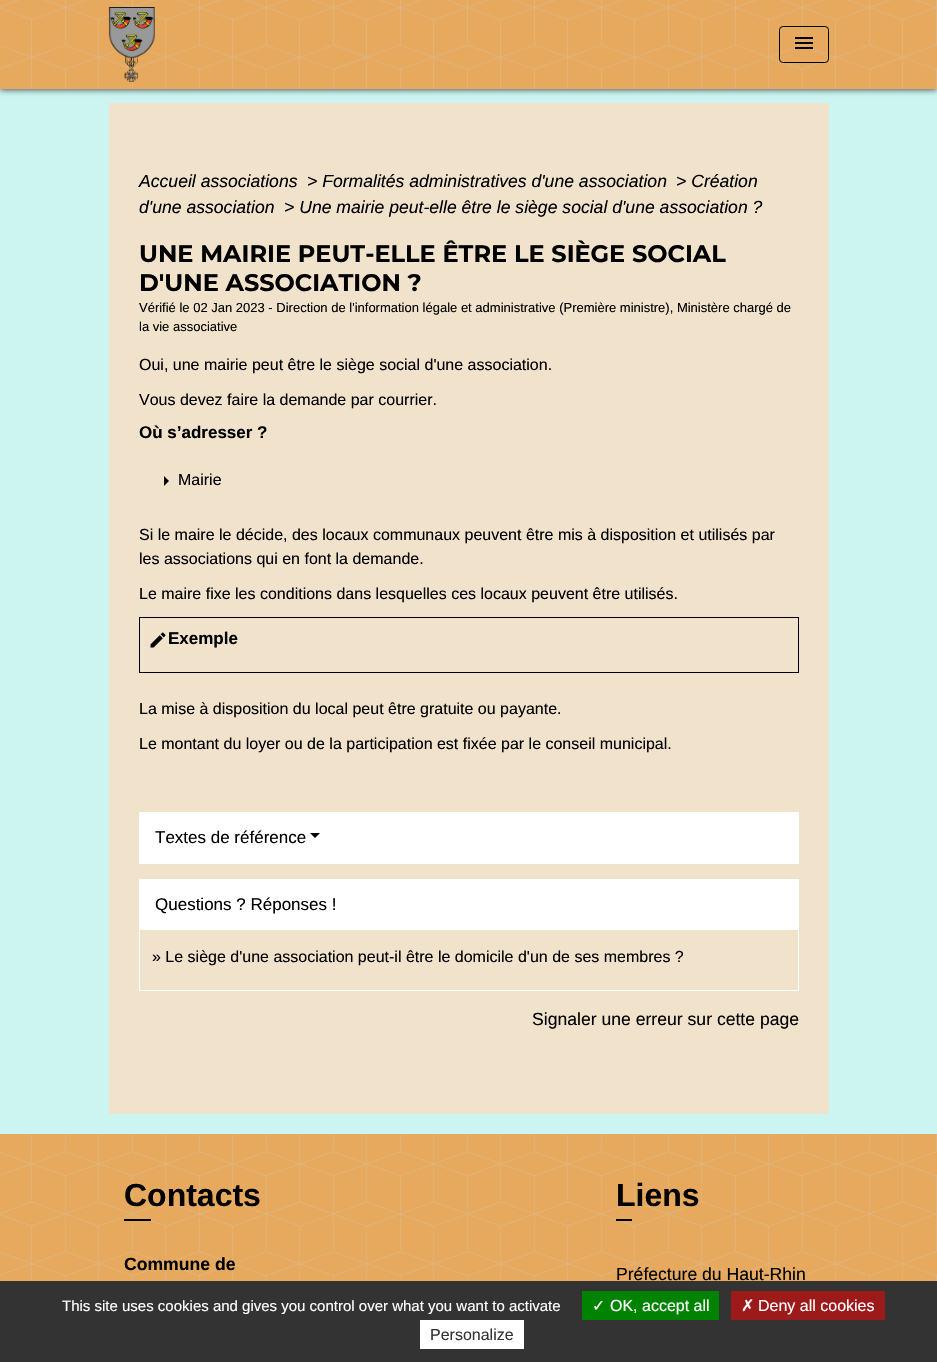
static SkFont makeFont(const char* family, int weight, float size, bool italic = false) {
  SkFontStyle style(weight, SkFontStyle::kNormal_Width,
    italic ? SkFontStyle::kItalic_Slant : SkFontStyle::kUpright_Slant);
  SkFont result(fontMgr->matchFamilyStyle(family, style), size);
  result.setSubpixel(true);
  return result;
}

static void text(SkCanvas* c, const char* s, float x, float y, const SkFont& font, SkColor color) {
  SkPaint ink(SkColor4f::FromColor(color));
  ink.setAntiAlias(true);
  c->drawString(s, x, y, font, ink);
}

static void box(SkCanvas* c, float l, float t, float r, float b, SkColor color) {
  SkPaint ink(SkColor4f::FromColor(color));
  ink.setAntiAlias(true);
  c->drawRect(SkRect::MakeLTRB(l, t, r, b), ink);
}

static void picture(SkCanvas* c, const char* path, float l, float t, float r, float b) {
  auto image = SkImages::DeferredFromEncodedData(SkData::MakeFromFileName(path));
  c->drawImageRect(image, SkRect::MakeLTRB(l, t, r, b), SkSamplingOptions());
}

void draw(SkCanvas* c) {
  SkPaint paint;
  paint.setAntiAlias(true);
  c->clear(0xffccf5f2);
  paint.setColor(0xff535353);
  paint.setMaskFilter(SkMaskFilter::MakeBlur(kNormal_SkBlurStyle, 3));
  c->drawRect(SkRect::MakeLTRB(0, 1, 937, 90), paint);
  paint.setMaskFilter(nullptr);
  box(c, 0, 0, 937, 89, 0xffe6a95d);
  picture(c, "img_01.png", 0, 0, 937, 89);
  picture(c, "img_02.png", 108, 7, 155, 82);
  paint.setStyle(SkPaint::kStroke_Style);
  paint.setStrokeWidth(1);
  paint.setColor(0xff000000);
  c->drawRoundRect(SkRect::MakeLTRB(779.5f, 26.5f, 828.5f, 62.5f), 3.5f, 3.5f, paint);
  picture(c, "img_03.png", 795, 37, 813, 49);
  box(c, 109, 103, 829, 1114, 0xfff0e2cb);
  SkFont face1 = makeFont("Liberation Sans", 400, 17.6f, true);
  text(c, "Accueil associations", 139, 187, face1, 0xff000000);
  text(c, "> Formalités administratives d'une association", 307, 187, face1, 0xff000000);
  text(c, "> Création", 676, 187, face1, 0xff000000);
  text(c, "d'une association", 139, 213, face1, 0xff000000);
  text(c, "> Une mairie peut-elle être le siège social d'une association ?", 284, 213, face1, 0xff000000);
  SkFont face2 = makeFont("Montserrat", 700, 24);
  text(c, "UNE MAIRIE PEUT-ELLE ÊTRE LE SIÈGE SOCIAL", 139, 262, face2, 0xff000000);
  text(c, "D'UNE ASSOCIATION ?", 139, 291, face2, 0xff000000);
  SkFont face3 = makeFont("Liberation Sans", 400, 13);
  text(c, "Vérifié le 02 Jan 2023 - Direction de l'information légale et administrative (Première ministre), Ministère chargé de", 139, 312, face3, 0xff000000);
  text(c, "la vie associative", 139, 331, face3, 0xff000000);
  SkFont face4 = makeFont("Liberation Sans", 400, 16);
  text(c, "Oui, une mairie peut être le siège social d'une association.", 139, 370, face4, 0xff000000);
  text(c, "Vous devez faire la demande par courrier.", 139, 405, face4, 0xff000000);
  SkFont face5 = makeFont("Liberation Sans", 700, 17);
  text(c, "Où s’adresser ?", 139, 438, face5, 0xff000000);
  paint.setStyle(SkPaint::kFill_Style);
  c->drawPath(SkPathBuilder().moveTo(164, 486).lineTo(164, 476).lineTo(169, 481).close().detach(), paint);
  text(c, "Mairie", 178, 485, face4, 0xff000000);
  text(c, "Si le maire le décide, des locaux communaux peuvent être mis à disposition et utilisés par", 139, 540, face4, 0xff000000);
  text(c, "les associations qui en font la demande.", 139, 564, face4, 0xff000000);
  text(c, "Le maire fixe les conditions dans lesquelles ces locaux peuvent être utilisés.", 139, 599, face4, 0xff000000);
  paint.setStyle(SkPaint::kStroke_Style);
  c->drawRect(SkRect::MakeLTRB(139.5f, 617.5f, 798.5f, 672.5f), paint);
  picture(c, "img_04.png", 150, 632, 166, 648);
  text(c, "Exemple", 168, 644, face5, 0xff000000);
  text(c, "La mise à disposition du local peut être gratuite ou payante.", 139, 714, face4, 0xff000000);
  text(c, "Le montant du loyer ou de la participation est fixée par le conseil municipal.", 139, 749, face4, 0xff000000);
  paint.setColor(0xffffffff);
  c->drawRect(SkRect::MakeLTRB(139.5f, 812.5f, 798.5f, 863.5f), paint);
  box(c, 140, 813, 798, 863, 0xffffffff);
  SkFont face6 = makeFont("Liberation Sans", 400, 17);
  text(c, "Textes de référence", 155, 843, face6, 0xff000000);
  paint.setStyle(SkPaint::kFill_Style);
  paint.setColor(0xff000000);
  c->drawPath(SkPathBuilder().moveTo(310, 833).lineTo(320, 833).lineTo(315, 838).close().detach(), paint);
  paint.setStyle(SkPaint::kStroke_Style);
  paint.setColor(0xffffffff);
  c->drawRect(SkRect::MakeLTRB(139.5f, 879.5f, 798.5f, 990.5f), paint);
  box(c, 140, 880, 798, 930, 0xffffffff);
  text(c, "Questions ? Réponses !", 155, 910, face6, 0xff000000);
  text(c, "» Le siège d'une association peut-il être le domicile d'un de ses membres ?", 152, 962, face4, 0xff000000);
  SkFont face7 = makeFont("Liberation Sans", 400, 17.6f);
  text(c, "Signaler une erreur sur cette page", 532, 1025, face7, 0xff000000);
  box(c, 0, 1134, 937, 1281, 0xffe6a95d);
  picture(c, "img_05.png", 0, 1134, 937, 1281);
  SkFont face8 = makeFont("Liberation Sans", 700, 32);
  text(c, "Contacts", 124, 1206, face8, 0xff000000);
  box(c, 124, 1219, 151, 1221, 0xff000000);
  SkFont face9 = makeFont("Liberation Sans", 700, 17.6f);
  text(c, "Commune de", 124, 1270, face9, 0xff000000);
  text(c, "Liens", 616, 1206, face8, 0xff000000);
  box(c, 616, 1219, 632, 1221, 0xff000000);
  text(c, "Préfecture du Haut-Rhin", 616, 1280, face7, 0xff000000);
  box(c, 0, 1281, 937, 1362, 0xff333333);
  SkFont face10 = makeFont("Liberation Sans", 400, 15);
  text(c, "This site uses cookies and gives you control over what you want to activate", 62, 1311, face10, 0xffffffff);
  box(c, 582, 1291, 719, 1320, 0xff008300);
  SkFont face11 = makeFont("DejaVu Sans", 400, 16);
  text(c, "✓", 592, 1311, face11, 0xffffffff);
  text(c, "OK, accept all", 610, 1311, face4, 0xffffffff);
  box(c, 731, 1291, 885, 1320, 0xff9c1a1a);
  text(c, "✗", 741, 1311, face11, 0xffffffff);
  text(c, "Deny all cookies", 758, 1311, face4, 0xffffffff);
  box(c, 420, 1320, 524, 1349, 0xffffffff);
  text(c, "Personalize", 430, 1340, face4, 0xff333333);
}
